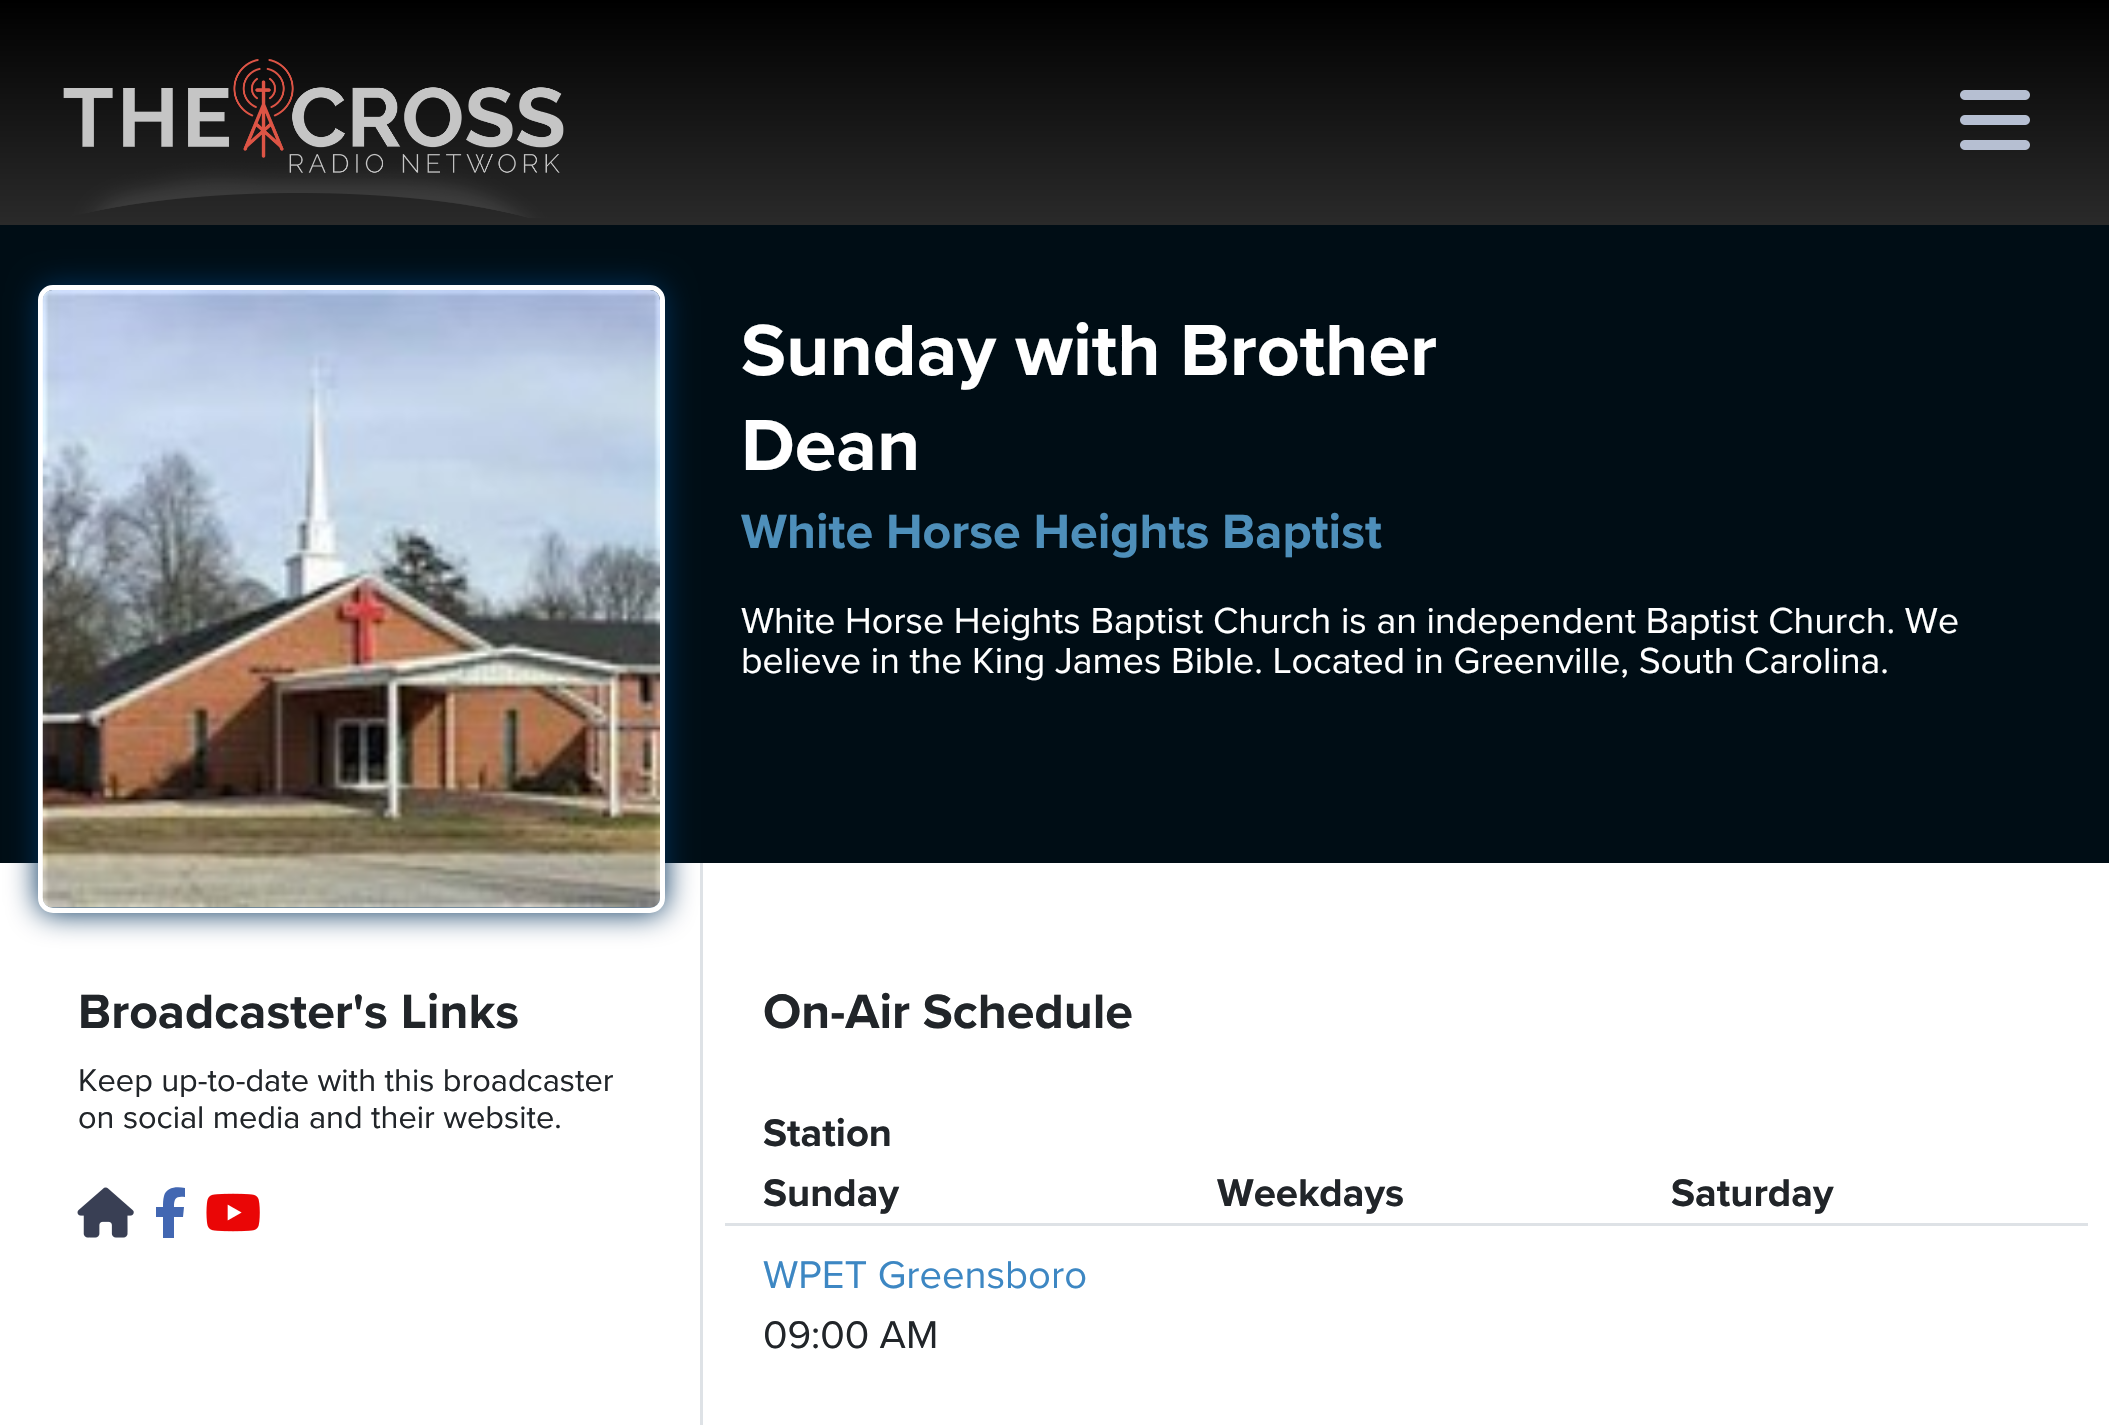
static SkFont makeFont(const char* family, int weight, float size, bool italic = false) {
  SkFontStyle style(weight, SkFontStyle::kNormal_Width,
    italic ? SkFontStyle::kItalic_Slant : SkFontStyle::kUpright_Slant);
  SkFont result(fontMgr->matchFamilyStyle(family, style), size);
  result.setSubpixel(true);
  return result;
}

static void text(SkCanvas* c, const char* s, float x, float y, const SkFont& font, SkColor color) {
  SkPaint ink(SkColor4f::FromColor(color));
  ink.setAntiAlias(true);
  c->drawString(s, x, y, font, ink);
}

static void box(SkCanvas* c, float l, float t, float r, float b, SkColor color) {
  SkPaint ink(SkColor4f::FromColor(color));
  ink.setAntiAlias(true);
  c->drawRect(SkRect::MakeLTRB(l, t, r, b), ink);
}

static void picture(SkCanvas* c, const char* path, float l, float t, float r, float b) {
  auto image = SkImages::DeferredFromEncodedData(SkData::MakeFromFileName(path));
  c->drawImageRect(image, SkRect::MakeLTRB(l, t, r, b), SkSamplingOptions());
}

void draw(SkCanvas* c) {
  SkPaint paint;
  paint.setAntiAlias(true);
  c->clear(0xffffffff);
  {
    const SkColor colors[] = {0xff2a2a2a, 0xff000000};
    const float stops[] = {0, 1};
    const SkPoint ends[] = {{1055, 225}, {1055, 0}};
    paint.setShader(SkGradientShader::MakeLinear(ends, colors, stops, 2, SkTileMode::kClamp));
    paint.setAlpha(255);
  }
  c->drawRect(SkRect::MakeLTRB(0, 0, 2109, 225), paint);
  picture(c, "img_01.png", 63, 59, 564, 218);
  picture(c, "img_02.png", 1960, 90, 2030, 150);
  box(c, 0, 225, 2109, 863, 0xff000d15);
  paint.setShader(nullptr);
  paint.setColor(0xff00305a);
  paint.setMaskFilter(SkMaskFilter::MakeBlur(kNormal_SkBlurStyle, 15));
  c->drawRoundRect(SkRect::MakeLTRB(38, 285, 665, 913), 15, 15, paint);
  paint.setMaskFilter(nullptr);
  paint.setStyle(SkPaint::kStroke_Style);
  paint.setStrokeWidth(5);
  paint.setColor(0xffffffff);
  c->drawRoundRect(SkRect::MakeLTRB(40.5f, 287.5f, 662.5f, 910.5f), 12.5f, 12.5f, paint);
  picture(c, "img_03.png", 42, 290, 660, 908);
  SkFont face1 = makeFont("Proxima Nova", 700, 75);
  text(c, "Sunday with Brother", 741, 375, face1, 0xffffffff);
  text(c, "Dean", 741, 470, face1, 0xffffffff);
  SkFont face2 = makeFont("Proxima Nova", 700, 50);
  text(c, "White Horse Heights Baptist", 741, 548, face2, 0xff4e8fba);
  SkFont face3 = makeFont("Proxima Nova", 400, 37.5f);
  text(c, "White Horse Heights Baptist Church is an independent Baptist Church. We", 741, 633, face3, 0xffffffff);
  text(c, "believe in the King James Bible. Located in Greenville, South Carolina.", 741, 673, face3, 0xffffffff);
  box(c, 700, 863, 703, 1425, 0xffdee2e6);
  text(c, "Broadcaster's Links", 78, 1028, face2, 0xff212529);
  SkFont face4 = makeFont("Proxima Nova", 400, 32.5f);
  text(c, "Keep up-to-date with this broadcaster", 78, 1091, face4, 0xff212529);
  text(c, "on social media and their website.", 78, 1128, face4, 0xff212529);
  picture(c, "img_04.png", 77, 1187, 134, 1238);
  paint.setStyle(SkPaint::kFill_Style);
  paint.setColor(0xff4267b2);
  c->drawPath(SkPathBuilder().moveTo(163, 1217).lineTo(163, 1238).lineTo(174, 1238).lineTo(174, 1217).lineTo(183, 1217).lineTo(184, 1207).lineTo(174, 1207).cubicTo(174, 1198, 176, 1196, 185, 1197).lineTo(185, 1188).cubicTo(177, 1186, 166, 1187, 164, 1196).cubicTo(163, 1200, 163, 1203, 163, 1207).lineTo(156, 1207).lineTo(156, 1217).close().detach(), paint);
  picture(c, "img_05.png", 206, 1193, 260, 1232);
  text(c, "On-Air Schedule", 763, 1028, face2, 0xff212529);
  SkFont face5 = makeFont("Proxima Nova", 700, 40);
  text(c, "Station", 763, 1146, face5, 0xff212529);
  text(c, "Sunday", 763, 1206, face5, 0xff212529);
  text(c, "Weekdays", 1217, 1206, face5, 0xff212529);
  text(c, "Saturday", 1671, 1206, face5, 0xff212529);
  box(c, 725, 1223, 2088, 1226, 0xffdee2e6);
  SkFont face6 = makeFont("Proxima Nova", 400, 40);
  text(c, "WPET Greensboro", 763, 1288, face6, 0xff3d87c3);
  text(c, "09:00 AM", 763, 1348, face6, 0xff212529);
}
